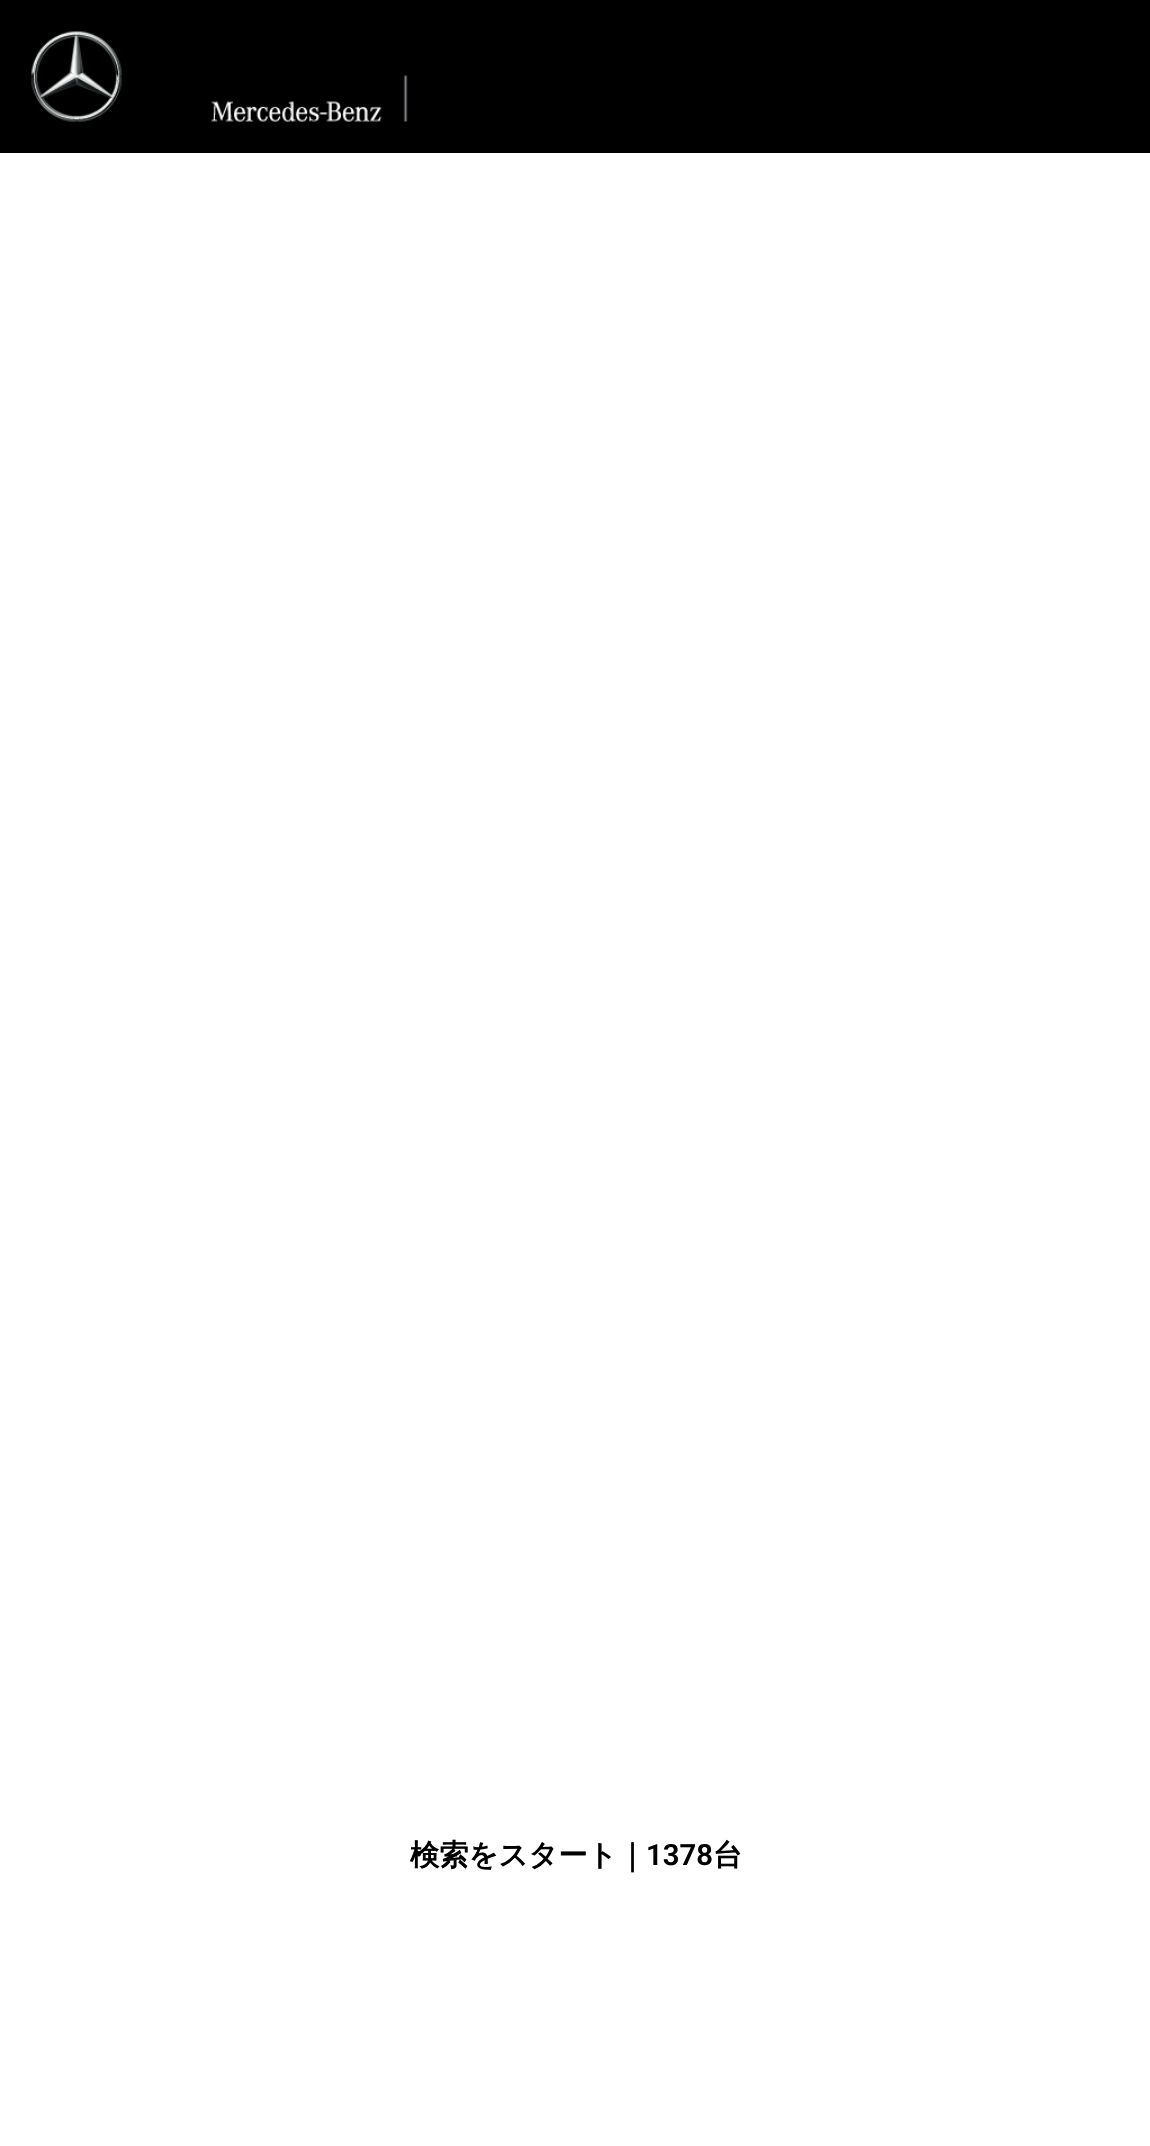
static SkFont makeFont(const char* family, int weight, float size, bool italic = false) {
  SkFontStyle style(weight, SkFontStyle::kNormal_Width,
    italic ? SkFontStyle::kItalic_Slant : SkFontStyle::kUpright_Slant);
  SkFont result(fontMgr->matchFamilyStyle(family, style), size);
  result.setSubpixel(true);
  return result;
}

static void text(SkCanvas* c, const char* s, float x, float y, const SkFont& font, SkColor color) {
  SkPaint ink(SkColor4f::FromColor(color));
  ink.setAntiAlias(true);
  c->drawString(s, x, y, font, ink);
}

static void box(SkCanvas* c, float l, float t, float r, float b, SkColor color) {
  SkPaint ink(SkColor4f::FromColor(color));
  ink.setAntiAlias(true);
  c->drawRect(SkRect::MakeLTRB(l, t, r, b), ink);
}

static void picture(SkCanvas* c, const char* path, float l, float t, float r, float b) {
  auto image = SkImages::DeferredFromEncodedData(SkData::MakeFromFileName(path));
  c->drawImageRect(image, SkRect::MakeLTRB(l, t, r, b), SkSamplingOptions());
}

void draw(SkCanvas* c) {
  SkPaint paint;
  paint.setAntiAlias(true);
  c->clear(0xffffffff);
  box(c, 0, 0, 1150, 153, 0xff000000);
  picture(c, "img_01.png", 31, 31, 408, 122);
  SkFont face1 = makeFont("WenQuanYi Zen Hei", 700, 29.25f);
  text(c, "検索をスタート｜", 410, 1865, face1, 0xff000000);
  SkFont face2 = makeFont("Roboto", 600, 29.25f);
  text(c, "1378", 646, 1865, face2, 0xff000000);
  text(c, "台", 713, 1865, face1, 0xff000000);
}
